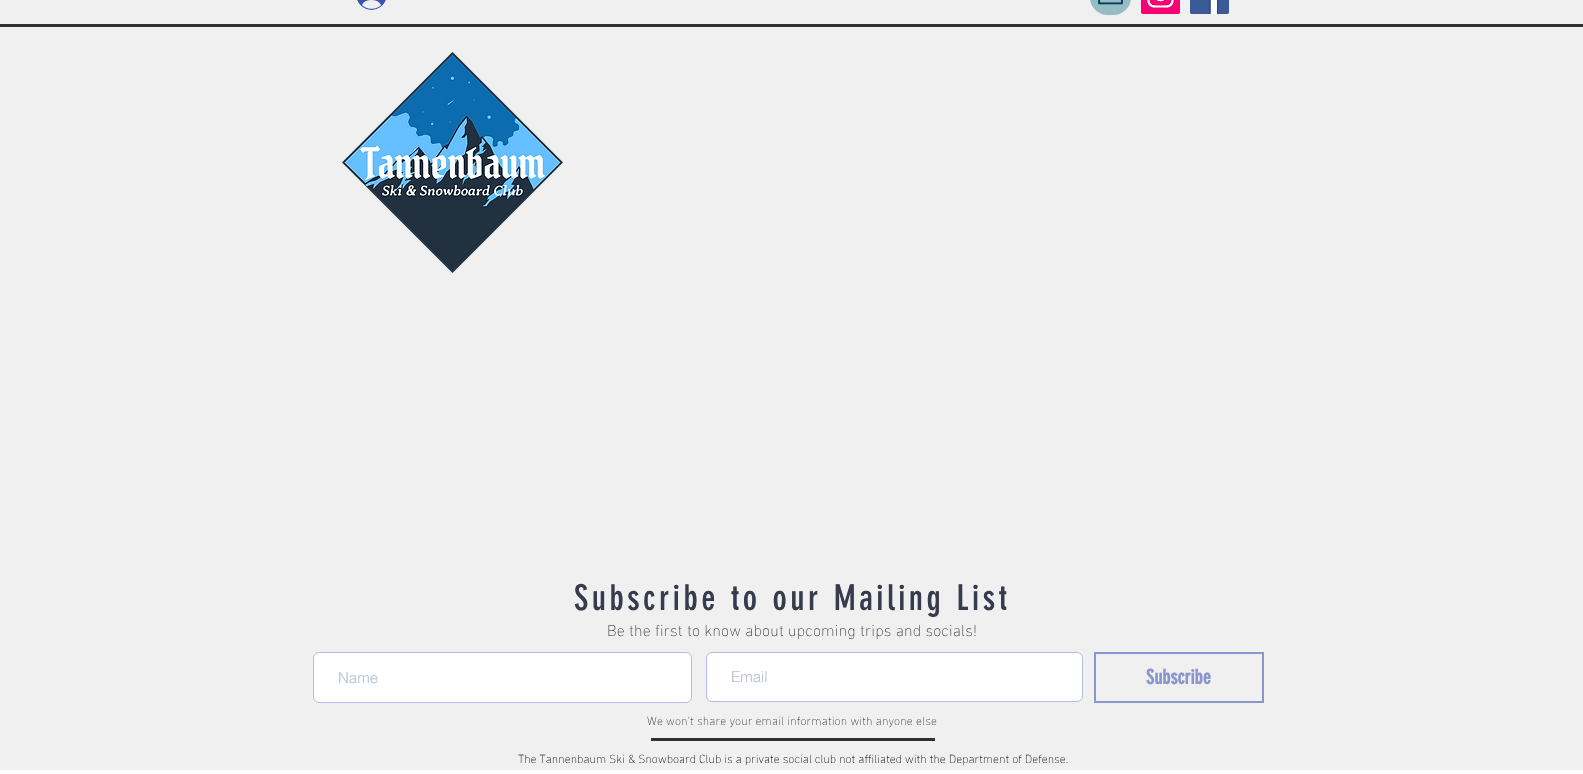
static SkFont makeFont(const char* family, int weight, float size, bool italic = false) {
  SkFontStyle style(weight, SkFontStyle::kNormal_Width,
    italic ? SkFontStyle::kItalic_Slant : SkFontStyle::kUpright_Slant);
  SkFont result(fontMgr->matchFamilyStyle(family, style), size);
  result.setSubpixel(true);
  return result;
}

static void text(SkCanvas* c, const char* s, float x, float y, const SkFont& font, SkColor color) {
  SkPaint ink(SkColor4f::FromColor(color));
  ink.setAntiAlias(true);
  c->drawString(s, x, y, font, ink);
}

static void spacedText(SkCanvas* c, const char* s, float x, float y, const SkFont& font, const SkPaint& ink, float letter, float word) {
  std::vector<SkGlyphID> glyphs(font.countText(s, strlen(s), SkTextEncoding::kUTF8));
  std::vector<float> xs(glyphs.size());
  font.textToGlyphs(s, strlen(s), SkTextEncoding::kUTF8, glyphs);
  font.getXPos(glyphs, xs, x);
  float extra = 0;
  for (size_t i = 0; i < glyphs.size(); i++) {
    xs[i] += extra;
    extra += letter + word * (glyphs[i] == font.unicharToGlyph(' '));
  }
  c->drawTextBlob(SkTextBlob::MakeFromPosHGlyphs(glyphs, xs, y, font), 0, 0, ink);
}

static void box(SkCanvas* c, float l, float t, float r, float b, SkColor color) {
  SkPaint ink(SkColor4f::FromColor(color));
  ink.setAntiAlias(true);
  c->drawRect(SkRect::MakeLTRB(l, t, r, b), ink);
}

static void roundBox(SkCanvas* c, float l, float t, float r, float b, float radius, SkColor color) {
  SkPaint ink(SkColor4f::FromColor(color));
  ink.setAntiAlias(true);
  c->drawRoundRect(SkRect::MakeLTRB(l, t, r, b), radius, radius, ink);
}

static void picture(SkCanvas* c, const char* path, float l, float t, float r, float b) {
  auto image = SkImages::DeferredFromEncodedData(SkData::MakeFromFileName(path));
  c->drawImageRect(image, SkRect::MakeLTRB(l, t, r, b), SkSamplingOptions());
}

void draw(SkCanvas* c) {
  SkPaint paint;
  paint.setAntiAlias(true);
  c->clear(0xffffffff);
  box(c, 0, 0, 1583, 770, 0xfff0f0f0);
  picture(c, "img_01.png", 357, 0, 386, 10);
  roundBox(c, 1090, -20, 1131, 15, 20, 0xff97bcc8);
  picture(c, "img_02.png", 1098, 0, 1123, 5);
  picture(c, "img_03.png", 1141, 0, 1180, 14);
  picture(c, "img_04.png", 1190, 0, 1229, 14);
  box(c, 0, 24, 1583, 27, 0xff303030);
  picture(c, "img_05.png", 342, 52, 563, 273);
  SkFont face1 = makeFont("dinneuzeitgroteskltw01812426", 400, 35);
  paint.setColor(0xff373b4d);
  spacedText(c, "Subscribe to our Mailing List", 574, 610, face1, paint, 3.5f, 0);
  SkFont face2 = makeFont("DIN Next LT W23", 200, 16);
  paint.setColor(0xff303030);
  spacedText(c, "Be the first to know about upcoming trips and socials!", 607, 636, face2, paint, 0.15f, 0);
  paint.setColor(0xffffffff);
  c->drawRoundRect(SkRect::MakeLTRB(313.5f, 652.5f, 691.5f, 702.5f), 5.5f, 5.5f, paint);
  paint.setStyle(SkPaint::kStroke_Style);
  paint.setStrokeWidth(1);
  paint.setColor(0xffb2bde6);
  c->drawRoundRect(SkRect::MakeLTRB(313.5f, 652.5f, 691.5f, 702.5f), 5.5f, 5.5f, paint);
  SkFont face3 = makeFont("helvetica", 300, 15);
  text(c, "Name", 338, 683, face3, 0xffb6c1cd);
  paint.setStyle(SkPaint::kFill_Style);
  paint.setColor(0xffffffff);
  c->drawRoundRect(SkRect::MakeLTRB(706.5f, 652.5f, 1082.5f, 701.5f), 5.5f, 5.5f, paint);
  paint.setStyle(SkPaint::kStroke_Style);
  paint.setColor(0xffb2bde6);
  c->drawRoundRect(SkRect::MakeLTRB(706.5f, 652.5f, 1082.5f, 701.5f), 5.5f, 5.5f, paint);
  text(c, "Email", 731, 682, face3, 0xffb6c1cd);
  paint.setStrokeWidth(2);
  paint.setColor(0xff8896cd);
  c->drawRect(SkRect::MakeLTRB(1095, 653, 1263, 702), paint);
  SkFont face4 = makeFont("dinneuzeitgroteskltw01812426", 700, 20);
  text(c, "Subscribe", 1146, 684, face4, 0xff8896cd);
  SkFont face5 = makeFont("DIN Next LT W23", 200, 12);
  paint.setStyle(SkPaint::kFill_Style);
  paint.setColor(0xff303030);
  spacedText(c, "We won't share your email information with anyone else", 647, 725, face5, paint, 0.12f, 0);
  box(c, 651, 738, 935, 741, 0xff303030);
  text(c, "The Tannenbaum Ski & Snowboard Club is a private social club not affiliated with the Department of Defense.", 518, 763, face5, 0xff000000);
}
